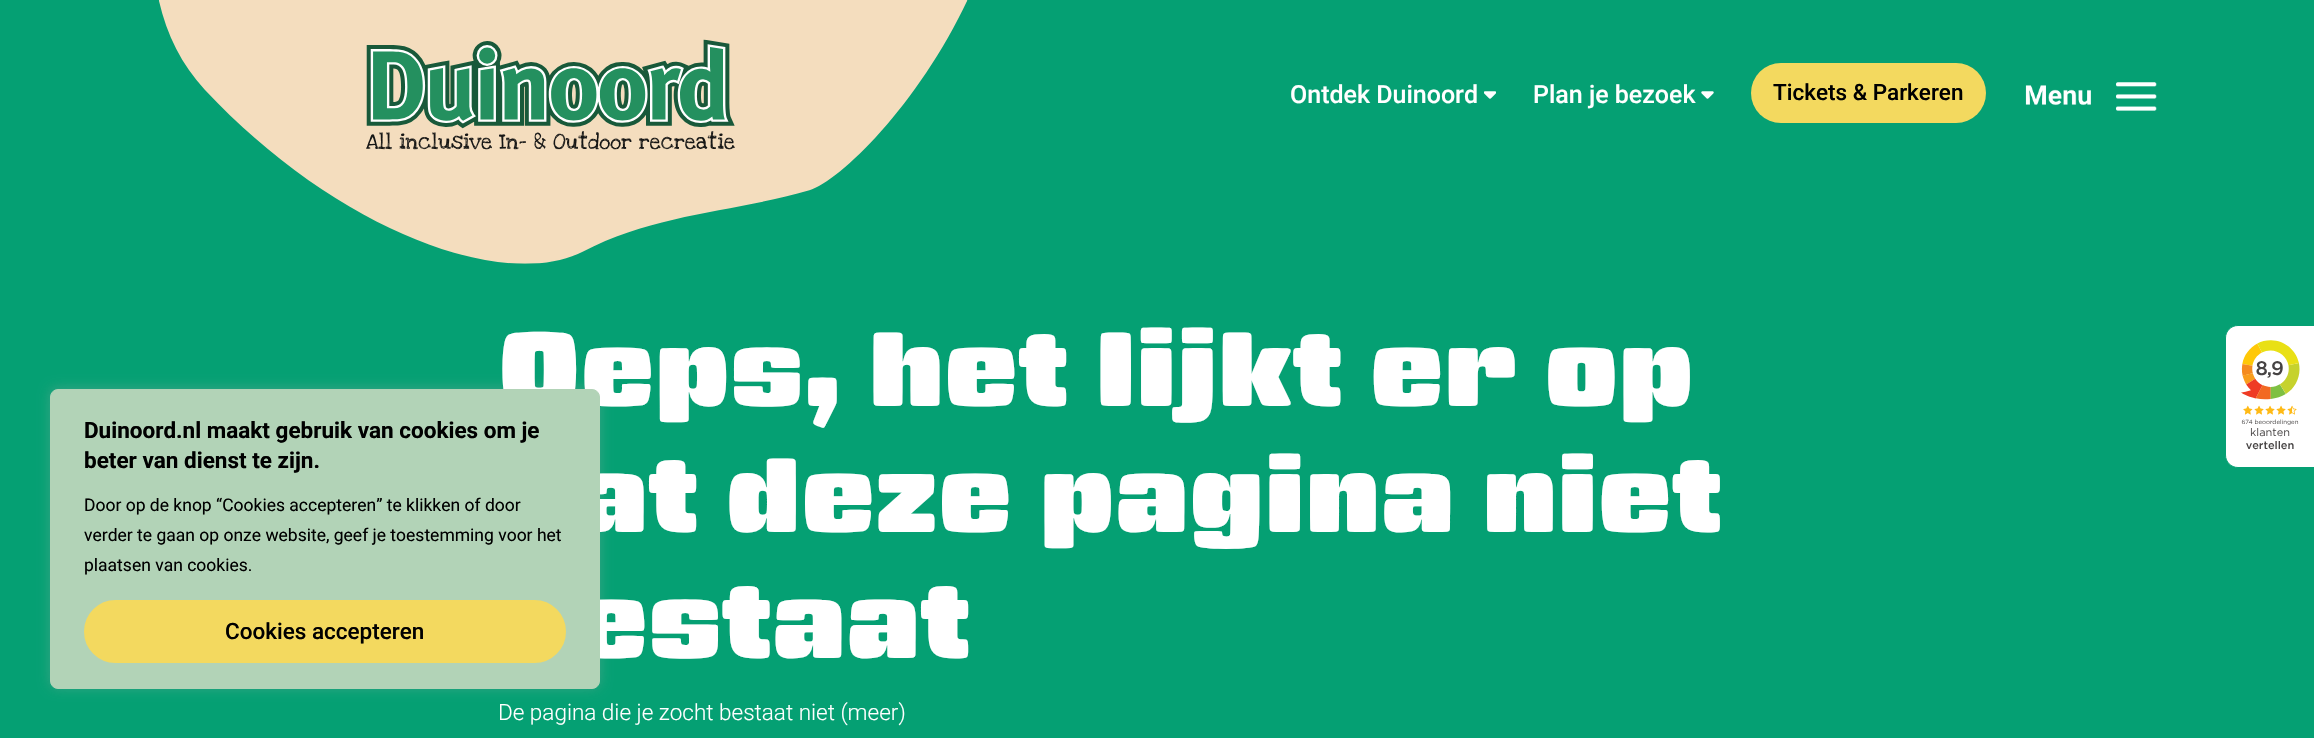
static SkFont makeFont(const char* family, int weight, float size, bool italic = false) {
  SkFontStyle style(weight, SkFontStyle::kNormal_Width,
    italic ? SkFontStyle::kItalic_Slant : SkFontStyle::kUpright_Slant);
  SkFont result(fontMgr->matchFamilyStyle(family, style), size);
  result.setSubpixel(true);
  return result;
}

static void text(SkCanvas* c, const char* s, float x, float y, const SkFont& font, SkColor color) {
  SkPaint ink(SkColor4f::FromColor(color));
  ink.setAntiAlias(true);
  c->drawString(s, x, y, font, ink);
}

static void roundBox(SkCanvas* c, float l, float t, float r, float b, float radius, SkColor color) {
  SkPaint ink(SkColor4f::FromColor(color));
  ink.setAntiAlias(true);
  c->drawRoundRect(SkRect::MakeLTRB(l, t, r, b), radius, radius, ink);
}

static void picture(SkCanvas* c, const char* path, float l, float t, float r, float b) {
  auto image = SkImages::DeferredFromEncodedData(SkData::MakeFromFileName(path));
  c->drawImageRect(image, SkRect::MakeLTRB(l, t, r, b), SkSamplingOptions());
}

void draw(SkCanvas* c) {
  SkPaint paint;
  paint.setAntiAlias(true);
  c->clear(0xff05a073);
  picture(c, "img_01.png", 159, 0, 968, 264);
  SkFont face1 = makeFont("Roboto", 500, 25);
  text(c, "Ontdek Duinoord", 1290, 103, face1, 0xffffffff);
  picture(c, "img_02.png", 1484, 91, 1496, 99);
  text(c, "Plan je bezoek", 1533, 103, face1, 0xffffffff);
  picture(c, "img_03.png", 1701, 91, 1714, 99);
  roundBox(c, 1751, 63, 1986, 123, 30, 0xfff3d95f);
  SkFont face2 = makeFont("Roboto", 500, 22.5f);
  text(c, "Tickets & Parkeren", 1773, 100, face2, 0xff000000);
  picture(c, "img_04.png", 2025, 82, 2157, 111);
  paint.setColor(0x4dacabab);
  paint.setMaskFilter(SkMaskFilter::MakeBlur(kNormal_SkBlurStyle, 6));
  c->drawRoundRect(SkRect::MakeLTRB(50, 388, 600, 688), 8, 8, paint);
  paint.setMaskFilter(nullptr);
  SkFont face3 = makeFont("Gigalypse", 400, 105);
  text(c, "Oeps, het lijkt er op", 498, 406, face3, 0xffffffff);
  text(c, "at deze pagina niet", 574, 532, face3, 0xffffffff);
  text(c, "estaat", 574, 658, face3, 0xffffffff);
  paint.setColor(0xffb2d3b7);
  c->drawRoundRect(SkRect::MakeLTRB(50.5f, 389.5f, 599.5f, 688.5f), 7.5f, 7.5f, paint);
  paint.setStyle(SkPaint::kStroke_Style);
  paint.setStrokeWidth(1);
  c->drawRoundRect(SkRect::MakeLTRB(50.5f, 389.5f, 599.5f, 688.5f), 7.5f, 7.5f, paint);
  SkFont face4 = makeFont("Roboto", 700, 22.5f);
  text(c, "Duinoord.nl maakt gebruik van cookies om je", 84, 438, face4, 0xff000000);
  text(c, "beter van dienst te zijn.", 84, 468, face4, 0xff000000);
  SkFont face5 = makeFont("Roboto", 400, 17.5f);
  text(c, "Door op de knop “Cookies accepteren” te klikken of door", 84, 511, face5, 0xff000000);
  text(c, "verder te gaan op onze website, geef je toestemming voor het", 84, 541, face5, 0xff000000);
  text(c, "plaatsen van cookies.", 84, 571, face5, 0xff000000);
  paint.setStyle(SkPaint::kFill_Style);
  paint.setColor(0xfff3d95f);
  c->drawRoundRect(SkRect::MakeLTRB(85.5f, 601.5f, 564.5f, 661.5f), 30, 30, paint);
  paint.setStyle(SkPaint::kStroke_Style);
  paint.setStrokeWidth(3);
  c->drawRoundRect(SkRect::MakeLTRB(85.5f, 601.5f, 564.5f, 661.5f), 30, 30, paint);
  text(c, "Cookies accepteren", 225, 639, face2, 0xff000000);
  SkFont face6 = makeFont("Roboto", 300, 22.5f);
  text(c, "De pagina die je zocht bestaat niet (meer)", 498, 720, face6, 0xffffffff);
  paint.setStyle(SkPaint::kFill_Style);
  paint.setColor(0xffffffff);
  c->drawPath(SkPathBuilder().moveTo(2238, 325.5f).lineTo(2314.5f, 325.5f).lineTo(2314.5f, 467.5f).lineTo(2238, 467.5f).cubicTo(2231, 467.5f, 2225.5f, 462, 2225.5f, 455).lineTo(2225.5f, 338).cubicTo(2225.5f, 331, 2231, 325.5f, 2238, 325.5f).close().detach(), paint);
  paint.setStyle(SkPaint::kStroke_Style);
  paint.setStrokeWidth(1);
  paint.setColor(0xff05a073);
  c->drawPath(SkPathBuilder().moveTo(2238, 325.5f).lineTo(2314.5f, 325.5f).lineTo(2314.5f, 467.5f).lineTo(2238, 467.5f).cubicTo(2231, 467.5f, 2225.5f, 462, 2225.5f, 455).lineTo(2225.5f, 338).cubicTo(2225.5f, 331, 2231, 325.5f, 2238, 325.5f).close().detach(), paint);
  picture(c, "img_05.png", 2241, 340, 2300, 450);
}
